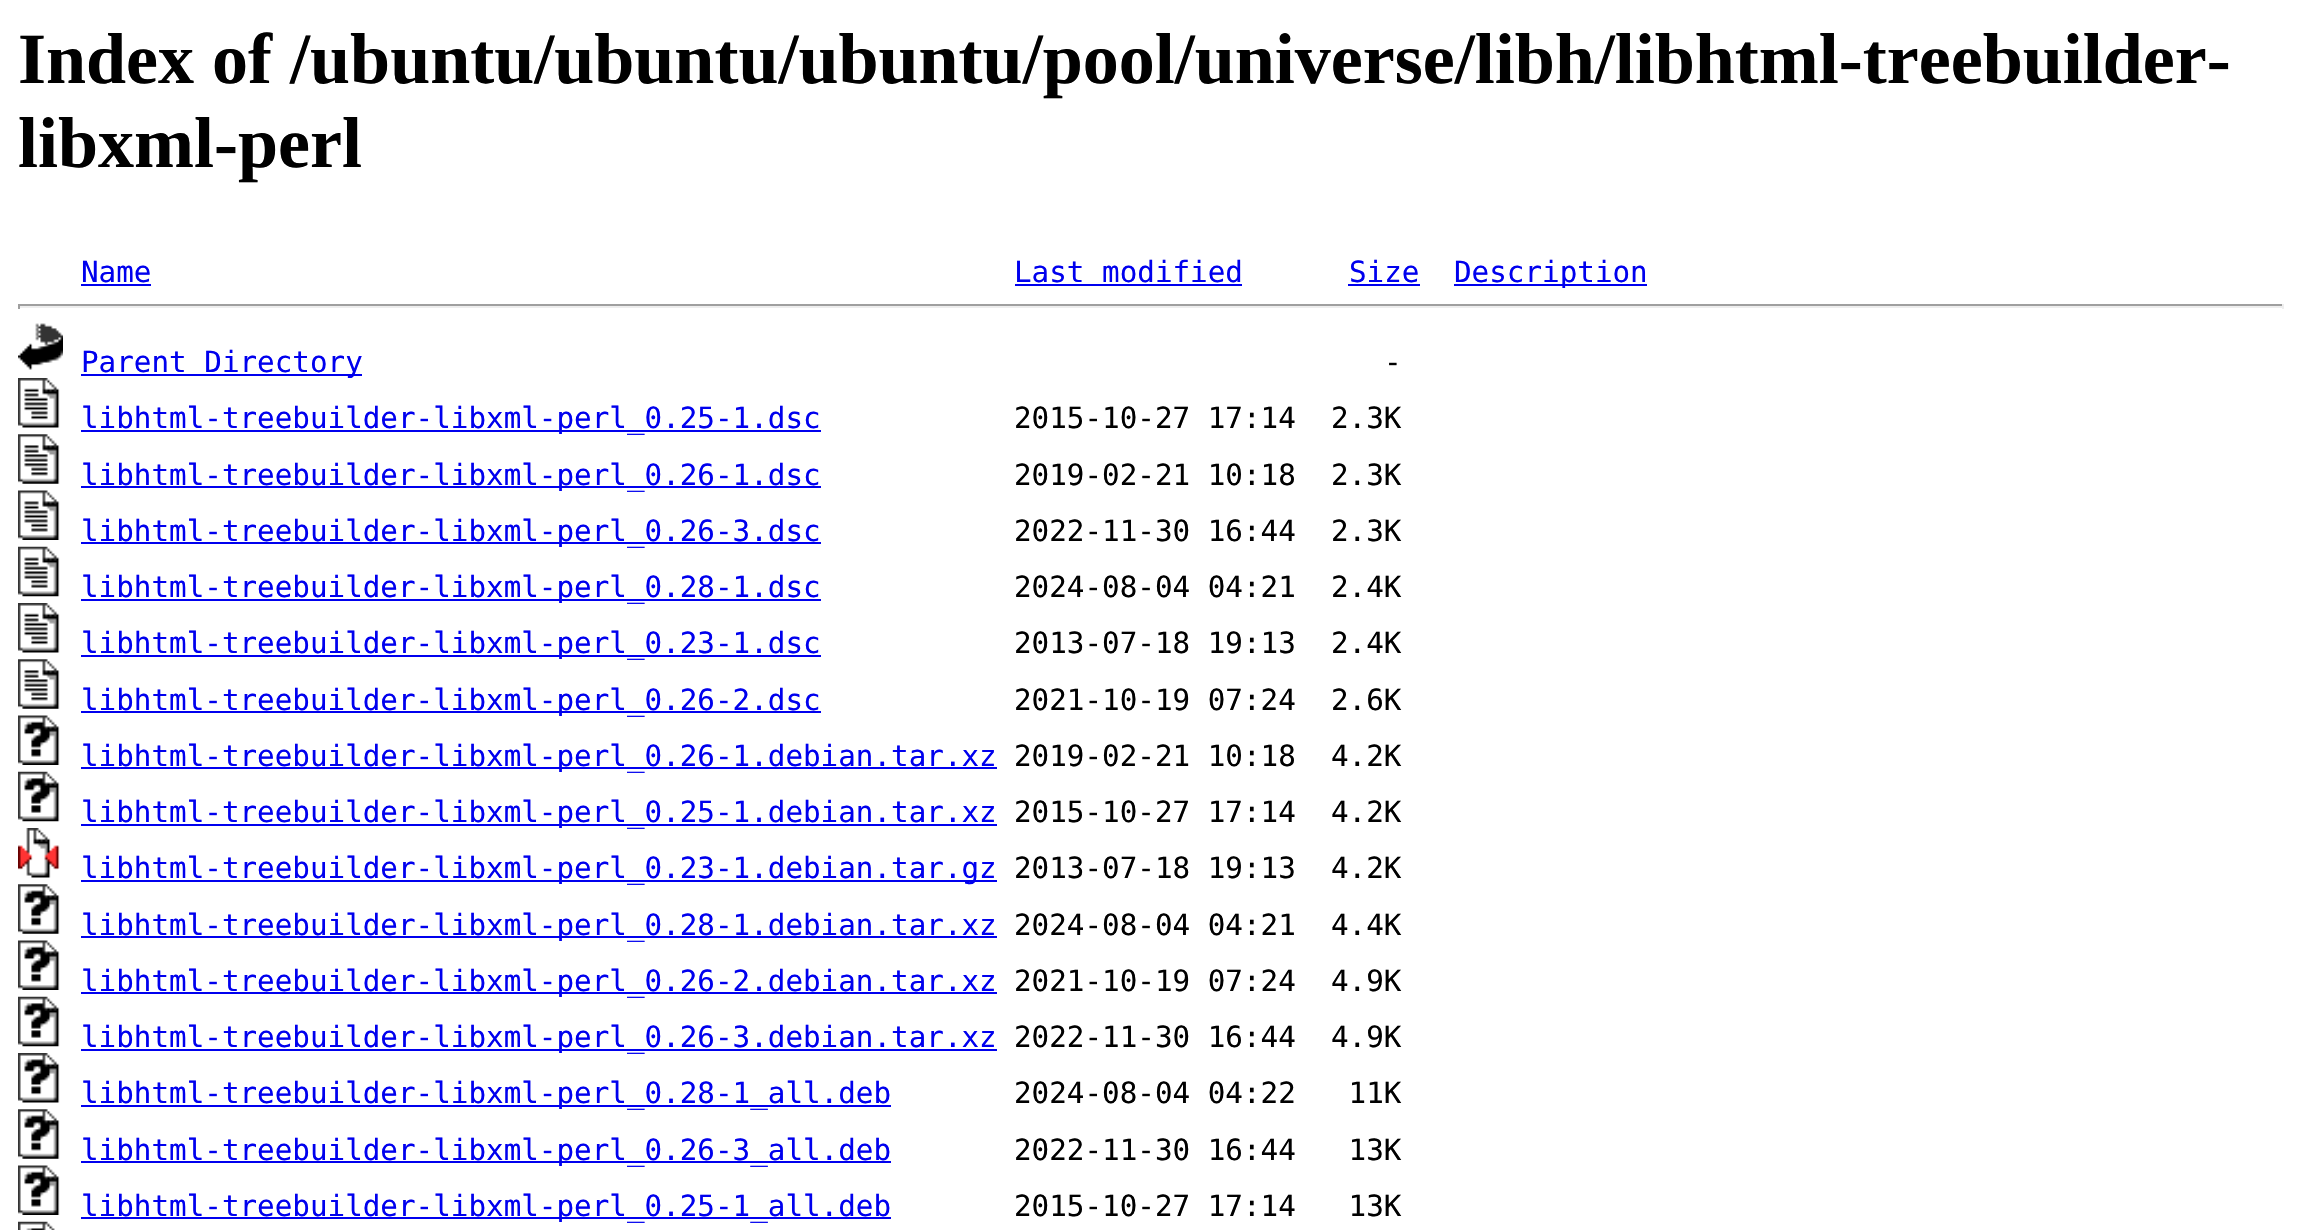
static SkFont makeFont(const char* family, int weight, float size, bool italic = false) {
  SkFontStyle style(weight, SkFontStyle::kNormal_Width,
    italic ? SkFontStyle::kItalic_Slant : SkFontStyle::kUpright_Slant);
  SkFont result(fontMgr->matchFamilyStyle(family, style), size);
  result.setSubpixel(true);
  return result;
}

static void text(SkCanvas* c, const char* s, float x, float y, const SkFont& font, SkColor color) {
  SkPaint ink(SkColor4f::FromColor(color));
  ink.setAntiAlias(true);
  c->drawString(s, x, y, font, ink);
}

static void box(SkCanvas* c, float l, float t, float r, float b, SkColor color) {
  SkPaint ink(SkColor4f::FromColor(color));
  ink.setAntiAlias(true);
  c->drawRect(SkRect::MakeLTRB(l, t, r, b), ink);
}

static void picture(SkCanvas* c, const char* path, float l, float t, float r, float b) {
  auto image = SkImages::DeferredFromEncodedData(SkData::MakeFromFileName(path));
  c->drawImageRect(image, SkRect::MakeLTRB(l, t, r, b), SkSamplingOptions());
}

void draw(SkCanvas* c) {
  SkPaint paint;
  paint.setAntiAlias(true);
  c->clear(0xffffffff);
  SkFont face1 = makeFont("Liberation Serif", 700, 72);
  text(c, "Index of /ubuntu/ubuntu/ubuntu/pool/universe/libh/libhtml-treebuilder-", 18, 83, face1, 0xff000000);
  text(c, "libxml-perl", 18, 167, face1, 0xff000000);
  SkFont face2 = makeFont("DejaVu Sans Mono", 400, 29.25f);
  text(c, "Name", 81, 282, face2, 0xff0000ee);
  box(c, 81, 284, 151, 286, 0xff0000ee);
  text(c, "Last modified", 1014, 282, face2, 0xff0000ee);
  box(c, 1015, 284, 1242, 286, 0xff0000ee);
  text(c, "Size", 1349, 282, face2, 0xff0000ee);
  box(c, 1348, 284, 1420, 286, 0xff0000ee);
  box(c, 1454, 284, 1647, 286, 0xff0000ee);
  text(c, "Description", 1454, 282, face2, 0xff0000ee);
  box(c, 18, 304, 2284, 306, 0xff9f9f9f);
  box(c, 2282, 304, 2284, 309, 0xffeeeeee);
  box(c, 18, 306, 2284, 308, 0xffeeeeee);
  box(c, 18, 304, 20, 309, 0xff9f9f9f);
  picture(c, "img_01.png", 18, 323, 63, 370);
  box(c, 81, 374, 362, 376, 0xff0000ee);
  text(c, "Parent Directory", 81, 372, face2, 0xff0000ee);
  text(c, "-", 1384, 372, face2, 0xff000000);
  picture(c, "img_02.png", 18, 378, 60, 428);
  box(c, 81, 430, 821, 432, 0xff0000ee);
  text(c, "libhtml-treebuilder-libxml-perl_0.25-1.dsc", 81, 428, face2, 0xff0000ee);
  text(c, "2015-10-27 17:14  2.3K", 1014, 428, face2, 0xff000000);
  picture(c, "img_03.png", 18, 434, 60, 484);
  box(c, 81, 486, 821, 488, 0xff0000ee);
  text(c, "libhtml-treebuilder-libxml-perl_0.26-1.dsc", 81, 485, face2, 0xff0000ee);
  text(c, "2019-02-21 10:18  2.3K", 1014, 485, face2, 0xff000000);
  picture(c, "img_04.png", 18, 490, 60, 540);
  box(c, 81, 542, 821, 544, 0xff0000ee);
  text(c, "libhtml-treebuilder-libxml-perl_0.26-3.dsc", 81, 541, face2, 0xff0000ee);
  text(c, "2022-11-30 16:44  2.3K", 1014, 541, face2, 0xff000000);
  picture(c, "img_05.png", 18, 546, 60, 597);
  box(c, 81, 599, 821, 601, 0xff0000ee);
  text(c, "libhtml-treebuilder-libxml-perl_0.28-1.dsc", 81, 597, face2, 0xff0000ee);
  text(c, "2024-08-04 04:21  2.4K", 1014, 597, face2, 0xff000000);
  picture(c, "img_02.png", 18, 603, 60, 653);
  box(c, 81, 655, 821, 657, 0xff0000ee);
  text(c, "libhtml-treebuilder-libxml-perl_0.23-1.dsc", 81, 653, face2, 0xff0000ee);
  text(c, "2013-07-18 19:13  2.4K", 1014, 653, face2, 0xff000000);
  picture(c, "img_03.png", 18, 659, 60, 709);
  box(c, 81, 711, 821, 713, 0xff0000ee);
  text(c, "libhtml-treebuilder-libxml-perl_0.26-2.dsc", 81, 710, face2, 0xff0000ee);
  text(c, "2021-10-19 07:24  2.6K", 1014, 710, face2, 0xff000000);
  picture(c, "img_06.png", 18, 715, 60, 765);
  box(c, 81, 767, 997, 769, 0xff0000ee);
  text(c, "libhtml-treebuilder-libxml-perl_0.26-1.debian.tar.xz", 81, 766, face2, 0xff0000ee);
  text(c, "2019-02-21 10:18  4.2K", 1014, 766, face2, 0xff000000);
  picture(c, "img_07.png", 18, 771, 60, 822);
  box(c, 81, 824, 997, 826, 0xff0000ee);
  text(c, "libhtml-treebuilder-libxml-perl_0.25-1.debian.tar.xz", 81, 822, face2, 0xff0000ee);
  text(c, "2015-10-27 17:14  4.2K", 1014, 822, face2, 0xff000000);
  picture(c, "img_08.png", 18, 828, 60, 878);
  box(c, 81, 880, 997, 882, 0xff0000ee);
  text(c, "libhtml-treebuilder-libxml-perl_0.23-1.debian.tar.gz", 81, 878, face2, 0xff0000ee);
  text(c, "2013-07-18 19:13  4.2K", 1014, 878, face2, 0xff000000);
  picture(c, "img_09.png", 18, 884, 60, 934);
  box(c, 81, 936, 997, 938, 0xff0000ee);
  text(c, "libhtml-treebuilder-libxml-perl_0.28-1.debian.tar.xz", 81, 935, face2, 0xff0000ee);
  text(c, "2024-08-04 04:21  4.4K", 1014, 935, face2, 0xff000000);
  picture(c, "img_06.png", 18, 940, 60, 990);
  box(c, 81, 992, 997, 994, 0xff0000ee);
  text(c, "libhtml-treebuilder-libxml-perl_0.26-2.debian.tar.xz", 81, 991, face2, 0xff0000ee);
  text(c, "2021-10-19 07:24  4.9K", 1014, 991, face2, 0xff000000);
  picture(c, "img_10.png", 18, 996, 60, 1047);
  box(c, 81, 1049, 997, 1051, 0xff0000ee);
  text(c, "libhtml-treebuilder-libxml-perl_0.26-3.debian.tar.xz", 81, 1047, face2, 0xff0000ee);
  text(c, "2022-11-30 16:44  4.9K", 1014, 1047, face2, 0xff000000);
  picture(c, "img_11.png", 18, 1053, 60, 1103);
  box(c, 81, 1105, 891, 1107, 0xff0000ee);
  text(c, "libhtml-treebuilder-libxml-perl_0.28-1_all.deb", 81, 1103, face2, 0xff0000ee);
  text(c, "2024-08-04 04:22   11K", 1014, 1103, face2, 0xff000000);
  picture(c, "img_09.png", 18, 1109, 60, 1159);
  box(c, 81, 1161, 891, 1163, 0xff0000ee);
  text(c, "libhtml-treebuilder-libxml-perl_0.26-3_all.deb", 81, 1160, face2, 0xff0000ee);
  text(c, "2022-11-30 16:44   13K", 1014, 1160, face2, 0xff000000);
  picture(c, "img_06.png", 18, 1165, 60, 1215);
  box(c, 81, 1217, 891, 1219, 0xff0000ee);
  text(c, "libhtml-treebuilder-libxml-perl_0.25-1_all.deb", 81, 1216, face2, 0xff0000ee);
  text(c, "2015-10-27 17:14   13K", 1014, 1216, face2, 0xff000000);
  picture(c, "img_12.png", 18, 1221, 55, 1230);
}
